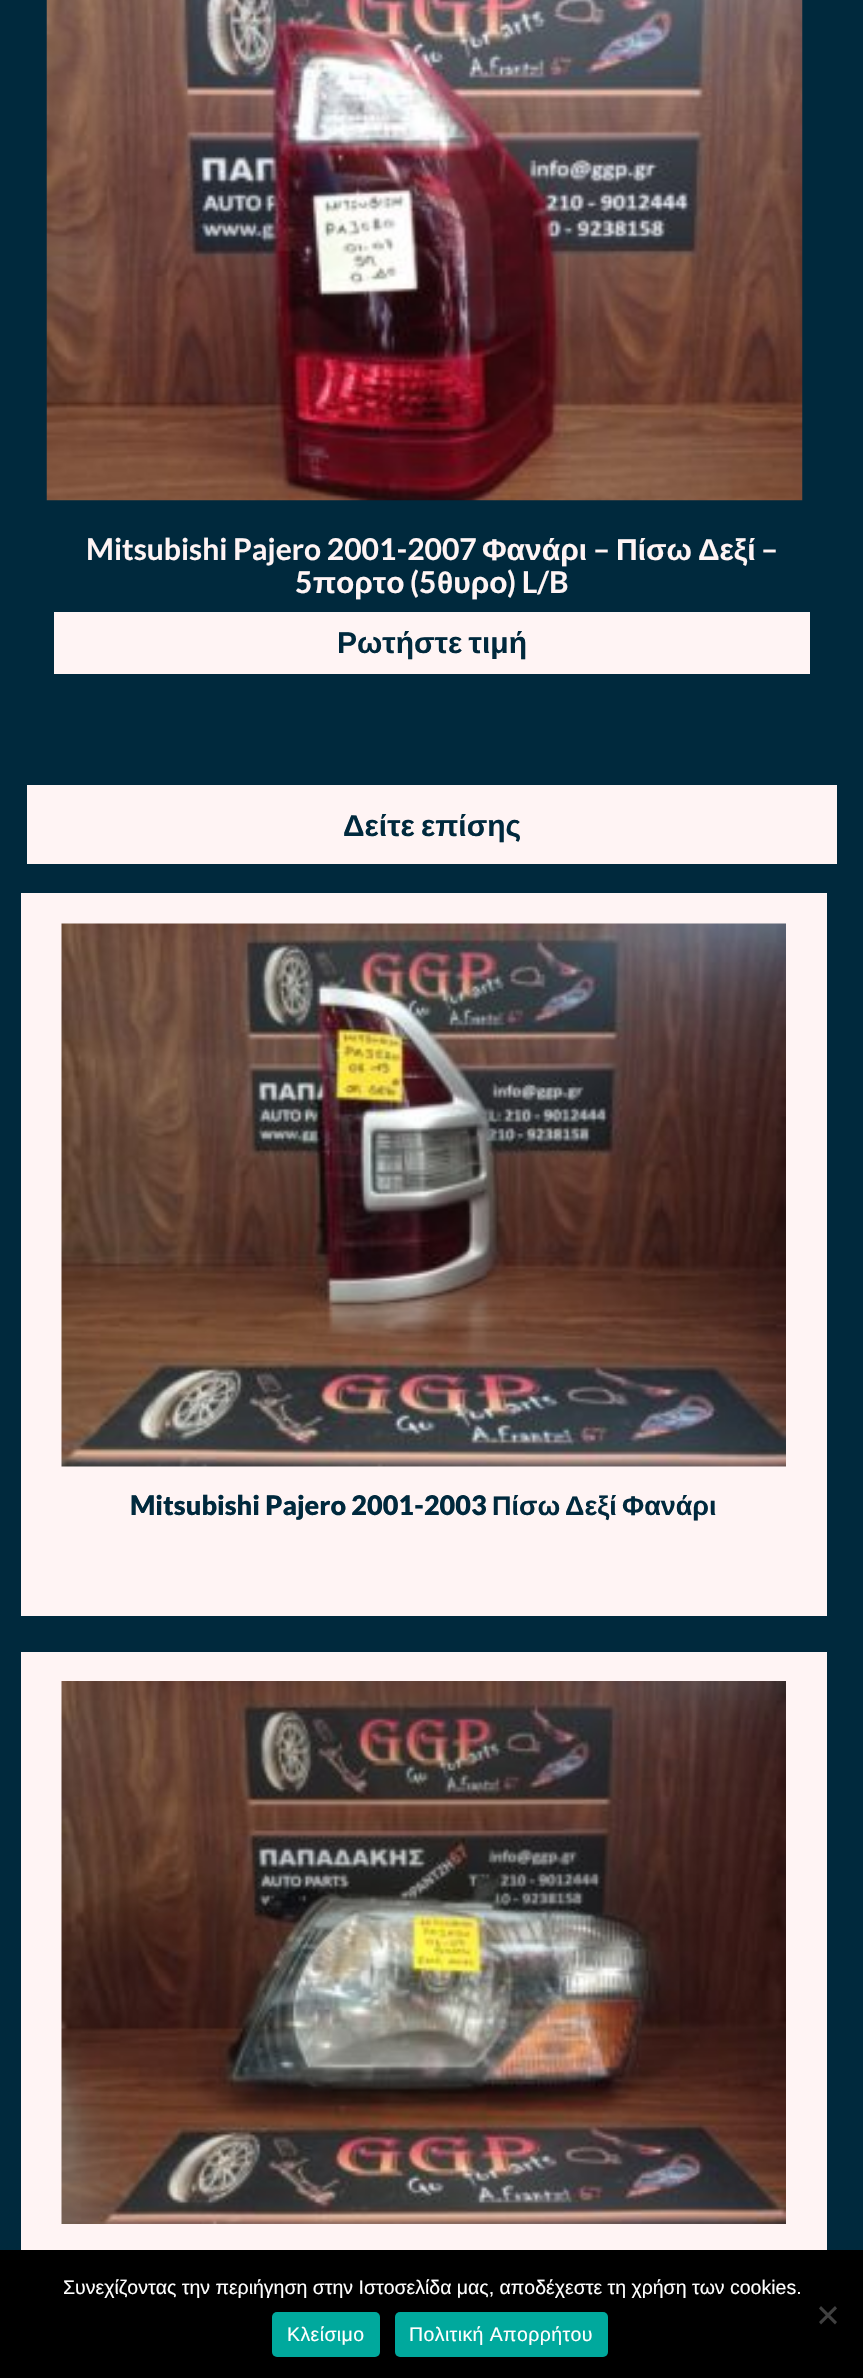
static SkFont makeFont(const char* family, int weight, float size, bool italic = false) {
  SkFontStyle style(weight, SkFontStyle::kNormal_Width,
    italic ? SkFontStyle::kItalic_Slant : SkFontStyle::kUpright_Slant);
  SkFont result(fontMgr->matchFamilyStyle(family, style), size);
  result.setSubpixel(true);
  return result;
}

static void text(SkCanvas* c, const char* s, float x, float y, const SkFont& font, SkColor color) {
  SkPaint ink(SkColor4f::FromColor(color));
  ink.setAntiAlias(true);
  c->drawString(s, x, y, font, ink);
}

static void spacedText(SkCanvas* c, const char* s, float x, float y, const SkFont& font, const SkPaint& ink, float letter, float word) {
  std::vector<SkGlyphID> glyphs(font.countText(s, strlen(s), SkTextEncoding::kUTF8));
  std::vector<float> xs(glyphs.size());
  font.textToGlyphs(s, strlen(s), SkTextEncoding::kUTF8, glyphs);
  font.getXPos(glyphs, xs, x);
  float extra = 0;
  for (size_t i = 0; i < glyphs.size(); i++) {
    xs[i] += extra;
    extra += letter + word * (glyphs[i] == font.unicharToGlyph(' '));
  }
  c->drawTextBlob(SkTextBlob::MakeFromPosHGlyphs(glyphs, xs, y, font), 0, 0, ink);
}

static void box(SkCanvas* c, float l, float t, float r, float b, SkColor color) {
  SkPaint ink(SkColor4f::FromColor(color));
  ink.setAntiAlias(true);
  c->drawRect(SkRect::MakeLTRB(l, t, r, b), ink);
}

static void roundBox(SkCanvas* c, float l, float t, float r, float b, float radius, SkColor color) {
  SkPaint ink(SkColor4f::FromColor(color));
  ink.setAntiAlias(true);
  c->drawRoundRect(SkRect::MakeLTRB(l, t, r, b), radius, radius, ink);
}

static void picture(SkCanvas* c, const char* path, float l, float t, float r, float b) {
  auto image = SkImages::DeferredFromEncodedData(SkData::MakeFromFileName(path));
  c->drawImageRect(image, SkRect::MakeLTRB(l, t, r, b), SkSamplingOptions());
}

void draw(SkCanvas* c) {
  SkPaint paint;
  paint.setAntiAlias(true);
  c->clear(0xff00293d);
  picture(c, "img_01.png", 46, 0, 803, 501);
  SkFont face1 = makeFont("Lato", 700, 30);
  text(c, "Mitsubishi Pajero 2001-2007", 86, 560, face1, 0xfffff4f4);
  SkFont face2 = makeFont("Liberation Sans", 700, 30);
  text(c, "Φανάρι", 482, 560, face2, 0xfffff4f4);
  text(c, "–", 593, 560, face1, 0xfffff4f4);
  text(c, "Πίσω", 616, 560, face2, 0xfffff4f4);
  text(c, "Δεξί", 698, 560, face2, 0xfffff4f4);
  text(c, "–", 761, 560, face1, 0xfffff4f4);
  text(c, "5", 295, 593, face1, 0xfffff4f4);
  text(c, "πορτο", 313, 593, face2, 0xfffff4f4);
  text(c, "(5", 410, 593, face1, 0xfffff4f4);
  text(c, "θυρο", 437, 593, face2, 0xfffff4f4);
  text(c, ") L/B", 507, 593, face1, 0xfffff4f4);
  box(c, 54, 612, 810, 674, 0xfffff4f4);
  paint.setColor(0xff00293d);
  spacedText(c, "Ρωτήστε τιμή", 337, 653, face2, paint, 0, -2);
  box(c, 27, 785, 837, 864, 0xfffff4f4);
  spacedText(c, "Δείτε επίσης", 343, 836, face2, paint, 0, -2);
  box(c, 21, 893, 827, 1616, 0xfffff4f4);
  picture(c, "img_02.png", 61, 923, 786, 1467);
  SkFont face3 = makeFont("Lato", 900, 27);
  text(c, "Mitsubishi Pajero 2001-2003", 130, 1515, face3, 0xff00293d);
  SkFont face4 = makeFont("Liberation Sans", 700, 27);
  text(c, "Πίσω", 492, 1515, face4, 0xff00293d);
  text(c, "Δεξί", 565, 1515, face4, 0xff00293d);
  text(c, "Φανάρι", 622, 1515, face4, 0xff00293d);
  box(c, 21, 1652, 827, 2250, 0xfffff4f4);
  picture(c, "img_03.png", 61, 1681, 786, 2224);
  box(c, 0, 2250, 863, 2378, 0xff000000);
  SkFont face5 = makeFont("Liberation Sans", 400, 19.5f);
  text(c, "Συνεχίζοντας την περιήγηση στην Ιστοσελίδα μας, αποδέχεστε τη χρήση των cookies.", 63, 2294, face5, 0xffffffff);
  paint.setColor(0xff404040);
  c->drawPath(SkPathBuilder().moveTo(835, 2306).lineTo(837, 2308.5f).lineTo(821, 2324.5f).lineTo(819, 2322).close().detach(), paint);
  c->drawPath(SkPathBuilder().moveTo(819, 2308.5f).lineTo(821, 2306).lineTo(837, 2322).lineTo(835, 2324.5f).close().detach(), paint);
  roundBox(c, 272, 2312, 380, 2357, 5, 0xff00a99d);
  paint.setColor(0xffffffff);
  spacedText(c, "Κλείσιμο", 287, 2341, face5, paint, 0.4f, 0);
  roundBox(c, 395, 2312, 608, 2357, 5, 0xff00a99d);
  spacedText(c, "Πολιτική Απορρήτου", 409, 2341, face5, paint, 0.4f, 0);
}
